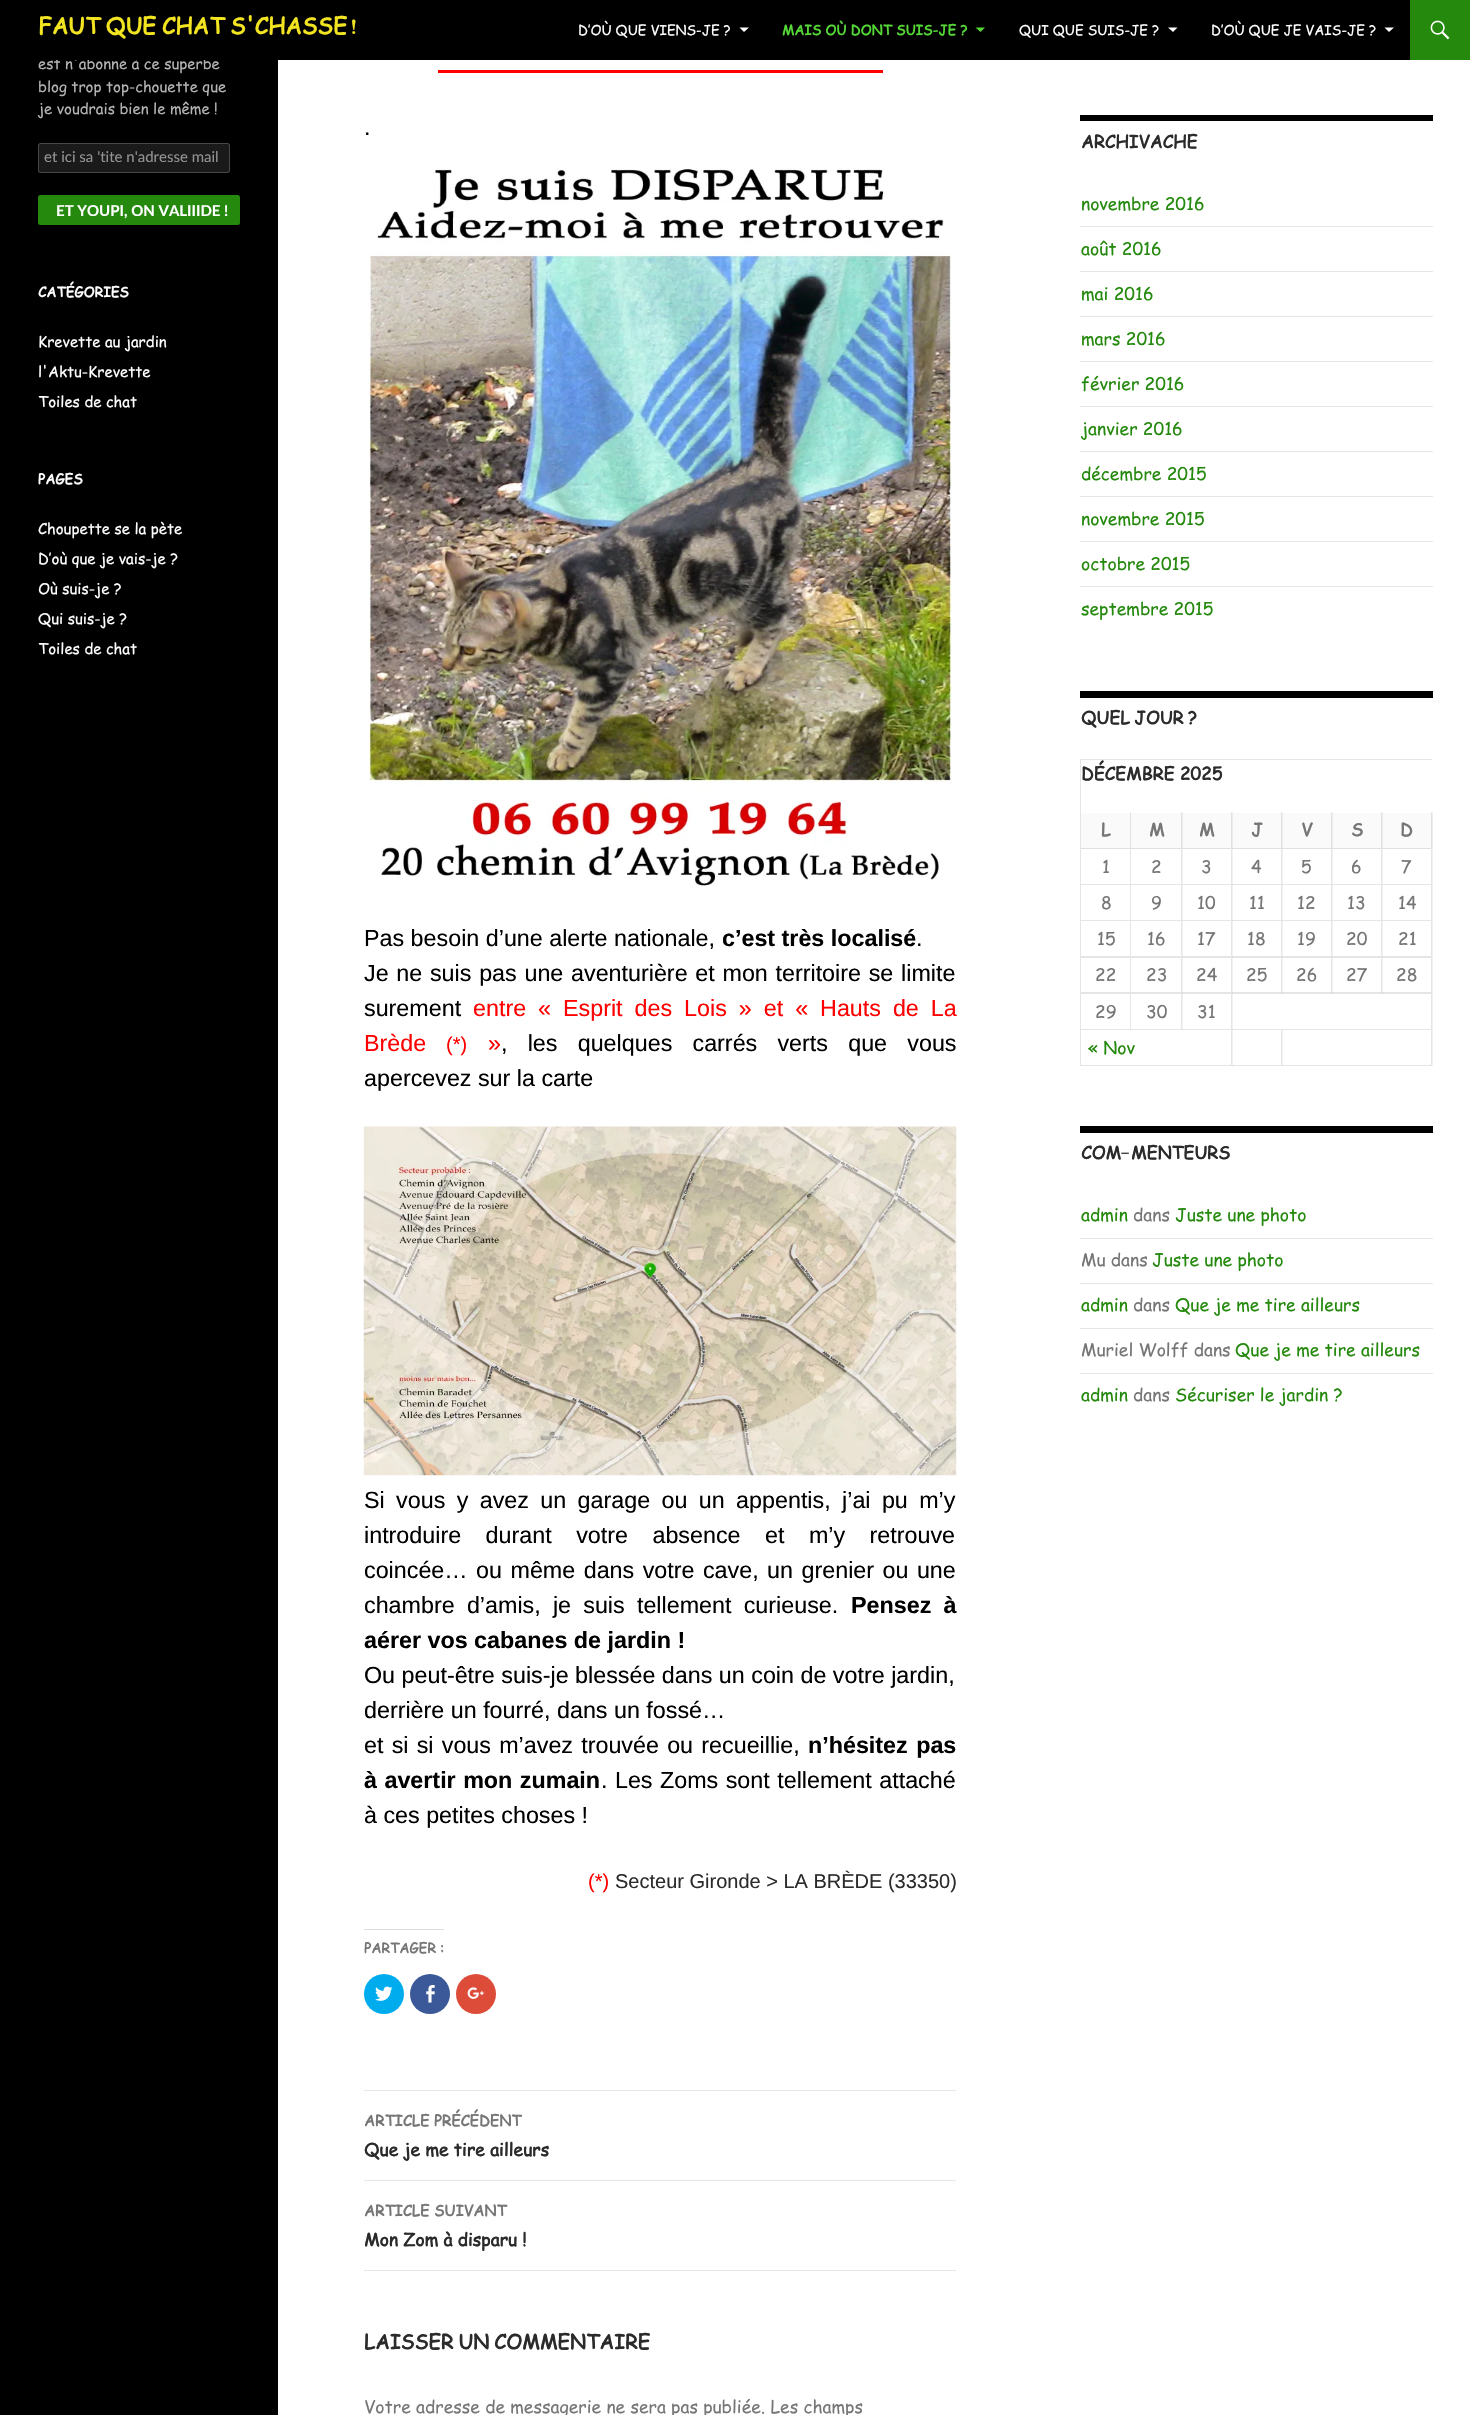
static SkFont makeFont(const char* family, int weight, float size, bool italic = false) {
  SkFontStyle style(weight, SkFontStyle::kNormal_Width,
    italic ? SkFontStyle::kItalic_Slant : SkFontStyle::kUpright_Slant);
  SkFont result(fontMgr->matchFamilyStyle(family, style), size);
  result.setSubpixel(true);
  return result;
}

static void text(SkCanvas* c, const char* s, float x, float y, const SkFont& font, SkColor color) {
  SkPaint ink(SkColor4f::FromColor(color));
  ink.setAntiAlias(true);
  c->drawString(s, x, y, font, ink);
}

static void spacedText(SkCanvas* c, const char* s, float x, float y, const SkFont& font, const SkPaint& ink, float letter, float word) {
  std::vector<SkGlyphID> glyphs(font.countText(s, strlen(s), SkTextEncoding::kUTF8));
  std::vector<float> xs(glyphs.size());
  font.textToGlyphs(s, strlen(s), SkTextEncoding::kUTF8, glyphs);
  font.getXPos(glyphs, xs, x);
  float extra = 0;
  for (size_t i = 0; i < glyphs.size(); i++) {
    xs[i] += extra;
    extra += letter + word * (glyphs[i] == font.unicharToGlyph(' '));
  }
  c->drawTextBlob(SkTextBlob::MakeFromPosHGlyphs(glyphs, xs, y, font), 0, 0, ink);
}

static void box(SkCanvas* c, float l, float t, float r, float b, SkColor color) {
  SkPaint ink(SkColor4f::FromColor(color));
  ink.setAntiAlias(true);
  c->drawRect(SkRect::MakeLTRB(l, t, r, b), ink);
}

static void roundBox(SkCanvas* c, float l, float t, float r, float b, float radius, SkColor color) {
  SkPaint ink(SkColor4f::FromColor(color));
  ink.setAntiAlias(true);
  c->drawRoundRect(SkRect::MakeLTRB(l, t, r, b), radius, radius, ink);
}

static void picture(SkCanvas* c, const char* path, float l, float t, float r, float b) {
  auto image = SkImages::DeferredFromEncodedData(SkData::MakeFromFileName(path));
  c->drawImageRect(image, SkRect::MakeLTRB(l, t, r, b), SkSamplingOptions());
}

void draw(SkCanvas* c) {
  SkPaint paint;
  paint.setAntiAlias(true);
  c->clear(0xffffffff);
  box(c, 0, 60, 278, 2415, 0xff000000);
  SkFont face1 = makeFont("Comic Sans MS", 400, 15);
  text(c, "est n'abonné à ce superbe", 38, 69, face1, 0xffb3b3b3);
  box(c, 0, 0, 1410, 60, 0xff000000);
  SkFont face2 = makeFont("Comic Sans MS", 700, 22.5f);
  paint.setColor(0xfff2e421);
  spacedText(c, "FAUT QUE CHAT S'CHASSE", 38, 34, face2, paint, 0, -1);
  SkFont face3 = makeFont("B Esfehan", 700, 22.5f);
  text(c, "!", 351, 34, face3, 0xfff2e421);
  SkFont face4 = makeFont("Comic Sans MS", 400, 13.75f);
  text(c, "D’OÙ QUE VIENS-JE ?", 578, 35, face4, 0xffffffff);
  paint.setColor(0xffffffff);
  c->drawPath(SkPathBuilder().moveTo(739.5f, 27.5f).lineTo(749, 27.5f).lineTo(744, 32).close().detach(), paint);
  SkFont face5 = makeFont("Comic Sans MS", 700, 13.75f);
  text(c, "MAIS OÙ DONT SUIS-JE ?", 782, 35, face5, 0xff55d737);
  paint.setColor(0xff55d737);
  c->drawPath(SkPathBuilder().moveTo(975.5f, 27.5f).lineTo(985, 27.5f).lineTo(980.5f, 32).close().detach(), paint);
  text(c, "QUI QUE SUIS-JE ?", 1019, 35, face4, 0xffffffff);
  paint.setColor(0xffffffff);
  c->drawPath(SkPathBuilder().moveTo(1168, 27.5f).lineTo(1177.5f, 27.5f).lineTo(1173, 32).close().detach(), paint);
  text(c, "D’OÙ QUE JE VAIS-JE ?", 1211, 35, face4, 0xffffffff);
  c->drawPath(SkPathBuilder().moveTo(1384.5f, 27.5f).lineTo(1394, 27.5f).lineTo(1389, 32).close().detach(), paint);
  box(c, 1410, 0, 1470, 60, 0xff24890d);
  picture(c, "img_01.png", 1430, 20, 1450, 40);
  text(c, "blog trop top-chouette que", 38, 92, face1, 0xffb3b3b3);
  text(c, "je voudrais bien le même !", 38, 114, face1, 0xffb3b3b3);
  roundBox(c, 38, 143, 230, 173, 2.5f, 0xff1a1a1a);
  paint.setStyle(SkPaint::kStroke_Style);
  paint.setStrokeWidth(1);
  paint.setColor(0x33ffffff);
  c->drawRoundRect(SkRect::MakeLTRB(38.5f, 143.5f, 229.5f, 172.5f), 2, 2, paint);
  SkFont face6 = makeFont("Lato", 400, 15);
  text(c, "et ici sa 'tite n'adresse mail", 44, 162, face6, 0xff939393);
  roundBox(c, 38, 195, 240, 225, 2.5f, 0xff24890d);
  SkFont face7 = makeFont("Lato", 700, 15);
  text(c, "ET YOUPI, ON VALIIIDE !", 56, 216, face7, 0xffffffff);
  text(c, "CATÉGORIES", 38, 297, face5, 0xffffffff);
  text(c, "Krevette au jardin", 38, 347, face1, 0xffffffff);
  text(c, "l'Aktu-Krevette", 38, 377, face1, 0xffffffff);
  text(c, "Toiles de chat", 38, 407, face1, 0xffffffff);
  text(c, "PAGES", 38, 484, face5, 0xffffffff);
  text(c, "Choupette se la pète", 38, 534, face1, 0xffffffff);
  text(c, "D’où que je vais-je ?", 38, 564, face1, 0xffffffff);
  text(c, "Où suis-je ?", 38, 594, face1, 0xffffffff);
  text(c, "Qui suis-je ?", 38, 624, face1, 0xffffffff);
  text(c, "Toiles de chat", 38, 654, face1, 0xffffffff);
  box(c, 438, 70, 883, 73, 0xffff0000);
  SkFont face8 = makeFont("Liberation Sans", 400, 23.3f);
  text(c, ".", 364, 135, face8, 0xff000000);
  picture(c, "img_02.png", 369, 168, 952, 886);
  text(c, "Pas besoin d’une alerte nationale,", 364, 946, face8, 0xff000000);
  SkFont face9 = makeFont("Liberation Sans", 700, 23.3f);
  text(c, "c’est très localisé", 722, 946, face9, 0xff000000);
  text(c, ".", 916, 946, face8, 0xff000000);
  paint.setStyle(SkPaint::kFill_Style);
  paint.setColor(0xff000000);
  spacedText(c, "Je ne suis pas une aventurière et mon territoire se limite", 364, 981, face8, paint, 0, 1.25f);
  text(c, "surement", 364, 1016, face8, 0xff000000);
  paint.setColor(0xffff0000);
  spacedText(c, "entre « Esprit des Lois » et « Hauts de La", 473, 1016, face8, paint, 0, 5.5f);
  text(c, "Brède", 364, 1051, face8, 0xffff0000);
  SkFont face10 = makeFont("Liberation Sans", 400, 20);
  text(c, "(*)", 446, 1051, face10, 0xffff0000);
  text(c, "»", 488, 1051, face8, 0xffff0000);
  paint.setColor(0xff000000);
  spacedText(c, ", les quelques carrés verts que vous", 501, 1051, face8, paint, 0, 13.75f);
  text(c, "apercevez sur la carte", 364, 1086, face8, 0xff000000);
  picture(c, "img_03.png", 363, 1126, 957, 1476);
  spacedText(c, "Si vous y avez un garage ou un appentis, j’ai pu m’y", 364, 1508, face8, paint, 0, 4.9f);
  spacedText(c, "introduire durant votre absence et m’y retrouve", 364, 1543, face8, paint, 0, 18);
  spacedText(c, "coincée… ou même dans votre cave, un grenier ou une", 364, 1578, face8, paint, 0, 2);
  spacedText(c, "chambre d’amis, je suis tellement curieuse.", 364, 1613, face8, paint, 0, 5.75f);
  spacedText(c, "Pensez à", 851, 1613, face9, paint, 0, 5.75f);
  text(c, "aérer vos cabanes de jardin !", 364, 1648, face9, 0xff000000);
  text(c, "Ou peut-être suis-je blessée dans un coin de votre jardin,", 364, 1683, face8, 0xff000000);
  text(c, "derrière un fourré, dans un fossé…", 364, 1718, face8, 0xff000000);
  spacedText(c, "et si si vous m’avez trouvée ou recueillie,", 364, 1753, face8, paint, 0, 1.75f);
  spacedText(c, "n’hésitez pas", 808, 1753, face9, paint, 0, 2);
  spacedText(c, "à avertir mon zumain", 364, 1788, face9, paint, 0, 1);
  spacedText(c, ". Les Zoms sont tellement attaché", 601, 1788, face8, paint, 0, 1);
  text(c, "à ces petites choses !", 364, 1823, face8, 0xff000000);
  text(c, "(*)", 588, 1888, face10, 0xffff0000);
  text(c, "Secteur Gironde > LA BRÈDE (33350)", 615, 1888, face10, 0xff2b2b2b);
  box(c, 364, 1929, 444, 1930, 0xffdddddd);
  text(c, "PARTAGER :", 364, 1953, face5, 0xff767676);
  paint.setColor(0xff00acee);
  c->drawCircle(384, 1994, 20, paint);
  picture(c, "img_04.png", 375, 1986, 393, 2001);
  paint.setColor(0xff3b5998);
  c->drawCircle(430, 1994, 20, paint);
  picture(c, "img_05.png", 426, 1985, 435, 2003);
  paint.setColor(0xffdd4b39);
  c->drawCircle(476, 1994, 20, paint);
  picture(c, "img_06.png", 467, 1987, 484, 1999);
  box(c, 364, 2090, 956, 2091, 0xffe6e6e6);
  box(c, 364, 2180, 956, 2181, 0xffe6e6e6);
  SkFont face11 = makeFont("Comic Sans MS", 700, 15);
  text(c, "ARTICLE PRÉCÉDENT", 364, 2126, face11, 0xff767676);
  SkFont face12 = makeFont("Comic Sans MS", 700, 17.5f);
  text(c, "Que je me tire ailleurs", 364, 2156, face12, 0xff2b2b2b);
  box(c, 364, 2270, 956, 2271, 0xffe6e6e6);
  text(c, "ARTICLE SUIVANT", 364, 2216, face11, 0xff767676);
  text(c, "Mon Zom à disparu !", 364, 2246, face12, 0xff2b2b2b);
  SkFont face13 = makeFont("Comic Sans MS", 700, 20);
  paint.setColor(0xff2b2b2b);
  spacedText(c, "LAISSER UN COMMENTAIRE", 364, 2349, face13, paint, 0, -1);
  SkFont face14 = makeFont("Comic Sans MS", 400, 17.5f);
  text(c, "Votre adresse de messagerie ne sera pas publiée. Les champs", 364, 2413, face14, 0xff767676);
  box(c, 1080, 115, 1433, 121, 0xff000000);
  text(c, "ARCHIVACHE", 1081, 148, face12, 0xff2b2b2b);
  text(c, "novembre 2016", 1081, 210, face14, 0xff24890d);
  box(c, 1080, 226, 1433, 227, 0xffe6e6e6);
  text(c, "août 2016", 1081, 255, face14, 0xff24890d);
  box(c, 1080, 271, 1433, 272, 0xffe6e6e6);
  text(c, "mai 2016", 1081, 300, face14, 0xff24890d);
  box(c, 1080, 316, 1433, 317, 0xffe6e6e6);
  text(c, "mars 2016", 1081, 345, face14, 0xff24890d);
  box(c, 1080, 361, 1433, 362, 0xffe6e6e6);
  text(c, "février 2016", 1081, 390, face14, 0xff24890d);
  box(c, 1080, 406, 1433, 407, 0xffe6e6e6);
  text(c, "janvier 2016", 1081, 435, face14, 0xff24890d);
  box(c, 1080, 451, 1433, 452, 0xffe6e6e6);
  text(c, "décembre 2015", 1081, 480, face14, 0xff24890d);
  box(c, 1080, 496, 1433, 497, 0xffe6e6e6);
  text(c, "novembre 2015", 1081, 525, face14, 0xff24890d);
  box(c, 1080, 541, 1433, 542, 0xffe6e6e6);
  text(c, "octobre 2015", 1081, 570, face14, 0xff24890d);
  box(c, 1080, 586, 1433, 587, 0xffe6e6e6);
  text(c, "septembre 2015", 1081, 615, face14, 0xff24890d);
  box(c, 1080, 691, 1433, 698, 0xff000000);
  spacedText(c, "QUEL JOUR ?", 1081, 724, face12, paint, 0, -1);
  paint.setColor(0xffe6e6e6);
  c->drawPath(SkPathBuilder().moveTo(1080, 759).lineTo(1432, 759).lineTo(1432, 760).lineTo(1081, 760).close().detach(), paint);
  paint.setColor(0x1a000000);
  c->drawPath(SkPathBuilder().moveTo(1080, 1066).lineTo(1080, 759).lineTo(1081, 760).lineTo(1081, 1066).close().detach(), paint);
  text(c, "DÉCEMBRE 2025", 1081, 780, face12, 0xff2b2b2b);
  box(c, 1081, 813, 1433, 849, 0xfffafafa);
  paint.setColor(0xffe1e1e1);
  c->drawPath(SkPathBuilder().moveTo(1131, 812.5f).lineTo(1131, 849).lineTo(1130, 847.5f).lineTo(1130, 812.5f).close().detach(), paint);
  paint.setColor(0x1a000000);
  c->drawPath(SkPathBuilder().moveTo(1131, 849).lineTo(1081, 849).lineTo(1081, 848).lineTo(1130, 848).close().detach(), paint);
  text(c, "L", 1101, 836, face12, 0xff767676);
  paint.setColor(0xffe1e1e1);
  c->drawPath(SkPathBuilder().moveTo(1182.5f, 812.5f).lineTo(1182.5f, 849).lineTo(1181, 847.5f).lineTo(1181, 812.5f).close().detach(), paint);
  paint.setColor(0x1a000000);
  c->drawPath(SkPathBuilder().moveTo(1182, 849).lineTo(1131, 849).lineTo(1131, 848).lineTo(1181, 848).close().detach(), paint);
  text(c, "M", 1149, 836, face12, 0xff767676);
  paint.setColor(0xffe1e1e1);
  c->drawPath(SkPathBuilder().moveTo(1232.5f, 812.5f).lineTo(1232.5f, 849).lineTo(1231, 847.5f).lineTo(1231, 812.5f).close().detach(), paint);
  paint.setColor(0x1a000000);
  c->drawPath(SkPathBuilder().moveTo(1232, 849).lineTo(1182, 849).lineTo(1182, 848).lineTo(1231, 848).close().detach(), paint);
  text(c, "M", 1199, 836, face12, 0xff767676);
  paint.setColor(0xffe1e1e1);
  c->drawPath(SkPathBuilder().moveTo(1282.5f, 812.5f).lineTo(1282.5f, 849).lineTo(1281, 847.5f).lineTo(1281, 812.5f).close().detach(), paint);
  paint.setColor(0x1a000000);
  c->drawPath(SkPathBuilder().moveTo(1282, 849).lineTo(1232, 849).lineTo(1232, 848).lineTo(1281, 848).close().detach(), paint);
  text(c, "J", 1251, 836, face12, 0xff767676);
  paint.setColor(0xffe1e1e1);
  c->drawPath(SkPathBuilder().moveTo(1332.5f, 812.5f).lineTo(1332.5f, 849).lineTo(1331, 847.5f).lineTo(1331, 812.5f).close().detach(), paint);
  paint.setColor(0x1a000000);
  c->drawPath(SkPathBuilder().moveTo(1332, 849).lineTo(1282, 849).lineTo(1282, 848).lineTo(1331, 848).close().detach(), paint);
  text(c, "V", 1301, 836, face12, 0xff767676);
  paint.setColor(0xffe1e1e1);
  c->drawPath(SkPathBuilder().moveTo(1382.5f, 812.5f).lineTo(1382.5f, 849).lineTo(1381, 847.5f).lineTo(1381, 812.5f).close().detach(), paint);
  paint.setColor(0x1a000000);
  c->drawPath(SkPathBuilder().moveTo(1382, 849).lineTo(1332, 849).lineTo(1332, 848).lineTo(1381, 848).close().detach(), paint);
  text(c, "S", 1351, 836, face12, 0xff767676);
  paint.setColor(0xffe1e1e1);
  c->drawPath(SkPathBuilder().moveTo(1432.5f, 812.5f).lineTo(1432.5f, 849).lineTo(1431, 847.5f).lineTo(1431, 812.5f).close().detach(), paint);
  paint.setColor(0x1a000000);
  c->drawPath(SkPathBuilder().moveTo(1432, 849).lineTo(1382, 849).lineTo(1382, 848).lineTo(1431, 848).close().detach(), paint);
  text(c, "D", 1400, 836, face12, 0xff767676);
  paint.setColor(0xffe6e6e6);
  c->drawPath(SkPathBuilder().moveTo(1131, 849).lineTo(1131, 885).lineTo(1130, 884).lineTo(1130, 849).close().detach(), paint);
  paint.setColor(0x1a000000);
  c->drawPath(SkPathBuilder().moveTo(1131, 885).lineTo(1081, 885).lineTo(1081, 884).lineTo(1130, 884).close().detach(), paint);
  text(c, "1", 1102, 873, face14, 0xff767676);
  paint.setColor(0xffe6e6e6);
  c->drawPath(SkPathBuilder().moveTo(1182.5f, 849).lineTo(1182.5f, 885).lineTo(1181, 884).lineTo(1181, 849).close().detach(), paint);
  paint.setColor(0x1a000000);
  c->drawPath(SkPathBuilder().moveTo(1182, 885).lineTo(1131, 885).lineTo(1131, 884).lineTo(1181, 884).close().detach(), paint);
  text(c, "2", 1151, 873, face14, 0xff767676);
  paint.setColor(0xffe6e6e6);
  c->drawPath(SkPathBuilder().moveTo(1232.5f, 849).lineTo(1232.5f, 885).lineTo(1231, 884).lineTo(1231, 849).close().detach(), paint);
  paint.setColor(0x1a000000);
  c->drawPath(SkPathBuilder().moveTo(1232, 885).lineTo(1182, 885).lineTo(1182, 884).lineTo(1231, 884).close().detach(), paint);
  text(c, "3", 1201, 873, face14, 0xff767676);
  paint.setColor(0xffe6e6e6);
  c->drawPath(SkPathBuilder().moveTo(1282.5f, 849).lineTo(1282.5f, 885).lineTo(1281, 884).lineTo(1281, 849).close().detach(), paint);
  paint.setColor(0x1a000000);
  c->drawPath(SkPathBuilder().moveTo(1282, 885).lineTo(1232, 885).lineTo(1232, 884).lineTo(1281, 884).close().detach(), paint);
  text(c, "4", 1251, 873, face14, 0xff767676);
  paint.setColor(0xffe6e6e6);
  c->drawPath(SkPathBuilder().moveTo(1332.5f, 849).lineTo(1332.5f, 885).lineTo(1331, 884).lineTo(1331, 849).close().detach(), paint);
  paint.setColor(0x1a000000);
  c->drawPath(SkPathBuilder().moveTo(1332, 885).lineTo(1282, 885).lineTo(1282, 884).lineTo(1331, 884).close().detach(), paint);
  text(c, "5", 1301, 873, face14, 0xff767676);
  paint.setColor(0xffe6e6e6);
  c->drawPath(SkPathBuilder().moveTo(1382.5f, 849).lineTo(1382.5f, 885).lineTo(1381, 884).lineTo(1381, 849).close().detach(), paint);
  paint.setColor(0x1a000000);
  c->drawPath(SkPathBuilder().moveTo(1382, 885).lineTo(1332, 885).lineTo(1332, 884).lineTo(1381, 884).close().detach(), paint);
  text(c, "6", 1351, 873, face14, 0xff767676);
  paint.setColor(0xffe6e6e6);
  c->drawPath(SkPathBuilder().moveTo(1432.5f, 849).lineTo(1432.5f, 885).lineTo(1431, 884).lineTo(1431, 849).close().detach(), paint);
  paint.setColor(0x1a000000);
  c->drawPath(SkPathBuilder().moveTo(1432, 885).lineTo(1382, 885).lineTo(1382, 884).lineTo(1431, 884).close().detach(), paint);
  text(c, "7", 1401, 873, face14, 0xff767676);
  paint.setColor(0xffe6e6e6);
  c->drawPath(SkPathBuilder().moveTo(1131, 885).lineTo(1131, 921).lineTo(1130, 920).lineTo(1130, 885).close().detach(), paint);
  paint.setColor(0x1a000000);
  c->drawPath(SkPathBuilder().moveTo(1131, 921).lineTo(1081, 921).lineTo(1081, 920).lineTo(1130, 920).close().detach(), paint);
  text(c, "8", 1101, 909, face14, 0xff767676);
  paint.setColor(0xffe6e6e6);
  c->drawPath(SkPathBuilder().moveTo(1182.5f, 885).lineTo(1182.5f, 921).lineTo(1181, 920).lineTo(1181, 885).close().detach(), paint);
  paint.setColor(0x1a000000);
  c->drawPath(SkPathBuilder().moveTo(1182, 921).lineTo(1131, 921).lineTo(1131, 920).lineTo(1181, 920).close().detach(), paint);
  text(c, "9", 1151, 909, face14, 0xff767676);
  paint.setColor(0xffe6e6e6);
  c->drawPath(SkPathBuilder().moveTo(1232.5f, 885).lineTo(1232.5f, 921).lineTo(1231, 920).lineTo(1231, 885).close().detach(), paint);
  paint.setColor(0x1a000000);
  c->drawPath(SkPathBuilder().moveTo(1232, 921).lineTo(1182, 921).lineTo(1182, 920).lineTo(1231, 920).close().detach(), paint);
  text(c, "10", 1197, 909, face14, 0xff767676);
  paint.setColor(0xffe6e6e6);
  c->drawPath(SkPathBuilder().moveTo(1282.5f, 885).lineTo(1282.5f, 921).lineTo(1281, 920).lineTo(1281, 885).close().detach(), paint);
  paint.setColor(0x1a000000);
  c->drawPath(SkPathBuilder().moveTo(1282, 921).lineTo(1232, 921).lineTo(1232, 920).lineTo(1281, 920).close().detach(), paint);
  text(c, "11", 1249, 909, face14, 0xff767676);
  paint.setColor(0xffe6e6e6);
  c->drawPath(SkPathBuilder().moveTo(1332.5f, 885).lineTo(1332.5f, 921).lineTo(1331, 920).lineTo(1331, 885).close().detach(), paint);
  paint.setColor(0x1a000000);
  c->drawPath(SkPathBuilder().moveTo(1332, 921).lineTo(1282, 921).lineTo(1282, 920).lineTo(1331, 920).close().detach(), paint);
  text(c, "12", 1297, 909, face14, 0xff767676);
  paint.setColor(0xffe6e6e6);
  c->drawPath(SkPathBuilder().moveTo(1382.5f, 885).lineTo(1382.5f, 921).lineTo(1381, 920).lineTo(1381, 885).close().detach(), paint);
  paint.setColor(0x1a000000);
  c->drawPath(SkPathBuilder().moveTo(1382, 921).lineTo(1332, 921).lineTo(1332, 920).lineTo(1381, 920).close().detach(), paint);
  text(c, "13", 1347, 909, face14, 0xff767676);
  paint.setColor(0xffe6e6e6);
  c->drawPath(SkPathBuilder().moveTo(1432.5f, 885).lineTo(1432.5f, 921).lineTo(1431, 920).lineTo(1431, 885).close().detach(), paint);
  paint.setColor(0x1a000000);
  c->drawPath(SkPathBuilder().moveTo(1432, 921).lineTo(1382, 921).lineTo(1382, 920).lineTo(1431, 920).close().detach(), paint);
  text(c, "14", 1398, 909, face14, 0xff767676);
  paint.setColor(0xffe6e6e6);
  c->drawPath(SkPathBuilder().moveTo(1131, 921).lineTo(1131, 957.5f).lineTo(1130, 956).lineTo(1130, 921).close().detach(), paint);
  paint.setColor(0xffe5e5e5);
  c->drawPath(SkPathBuilder().moveTo(1131, 958).lineTo(1081, 958).lineTo(1081, 956).lineTo(1130, 956).close().detach(), paint);
  text(c, "15", 1097, 945, face14, 0xff767676);
  paint.setColor(0xffe6e6e6);
  c->drawPath(SkPathBuilder().moveTo(1182.5f, 921).lineTo(1182.5f, 957.5f).lineTo(1181, 956).lineTo(1181, 921).close().detach(), paint);
  c->drawPath(SkPathBuilder().moveTo(1182, 958).lineTo(1131, 958).lineTo(1131, 956).lineTo(1181, 956).close().detach(), paint);
  text(c, "16", 1147, 945, face14, 0xff767676);
  c->drawPath(SkPathBuilder().moveTo(1232.5f, 921).lineTo(1232.5f, 957.5f).lineTo(1231, 956).lineTo(1231, 921).close().detach(), paint);
  paint.setColor(0x1a000000);
  c->drawPath(SkPathBuilder().moveTo(1232, 958).lineTo(1182, 958).lineTo(1182, 956).lineTo(1231, 956).close().detach(), paint);
  text(c, "17", 1197, 945, face14, 0xff767676);
  paint.setColor(0xffe6e6e6);
  c->drawPath(SkPathBuilder().moveTo(1282.5f, 921).lineTo(1282.5f, 957.5f).lineTo(1281, 956).lineTo(1281, 921).close().detach(), paint);
  paint.setColor(0x1a000000);
  c->drawPath(SkPathBuilder().moveTo(1282, 958).lineTo(1232, 958).lineTo(1232, 956).lineTo(1281, 956).close().detach(), paint);
  text(c, "18", 1247, 945, face14, 0xff767676);
  paint.setColor(0xffe6e6e6);
  c->drawPath(SkPathBuilder().moveTo(1332.5f, 921).lineTo(1332.5f, 957.5f).lineTo(1331, 956).lineTo(1331, 921).close().detach(), paint);
  paint.setColor(0x1a000000);
  c->drawPath(SkPathBuilder().moveTo(1332, 958).lineTo(1282, 958).lineTo(1282, 956).lineTo(1331, 956).close().detach(), paint);
  text(c, "19", 1297, 945, face14, 0xff767676);
  paint.setColor(0xffe6e6e6);
  c->drawPath(SkPathBuilder().moveTo(1382.5f, 921).lineTo(1382.5f, 957.5f).lineTo(1381, 956).lineTo(1381, 921).close().detach(), paint);
  paint.setColor(0x1a000000);
  c->drawPath(SkPathBuilder().moveTo(1382, 958).lineTo(1332, 958).lineTo(1332, 956).lineTo(1381, 956).close().detach(), paint);
  text(c, "20", 1346, 945, face14, 0xff767676);
  paint.setColor(0xffe6e6e6);
  c->drawPath(SkPathBuilder().moveTo(1432.5f, 921).lineTo(1432.5f, 957.5f).lineTo(1431, 956).lineTo(1431, 921).close().detach(), paint);
  paint.setColor(0x1a000000);
  c->drawPath(SkPathBuilder().moveTo(1432, 958).lineTo(1382, 958).lineTo(1382, 956).lineTo(1431, 956).close().detach(), paint);
  text(c, "21", 1398, 945, face14, 0xff767676);
  paint.setColor(0xffe6e6e6);
  c->drawPath(SkPathBuilder().moveTo(1131, 957.5f).lineTo(1131, 994).lineTo(1130, 992.5f).lineTo(1130, 957.5f).close().detach(), paint);
  paint.setColor(0x1a000000);
  c->drawPath(SkPathBuilder().moveTo(1131, 994).lineTo(1081, 994).lineTo(1081, 992).lineTo(1130, 992).close().detach(), paint);
  text(c, "22", 1095, 981, face14, 0xff767676);
  paint.setColor(0xffe6e6e6);
  c->drawPath(SkPathBuilder().moveTo(1182.5f, 957.5f).lineTo(1182.5f, 994).lineTo(1181, 992.5f).lineTo(1181, 957.5f).close().detach(), paint);
  paint.setColor(0x1a000000);
  c->drawPath(SkPathBuilder().moveTo(1182, 994).lineTo(1131, 994).lineTo(1131, 992).lineTo(1181, 992).close().detach(), paint);
  text(c, "23", 1146, 981, face14, 0xff767676);
  paint.setColor(0xffe6e6e6);
  c->drawPath(SkPathBuilder().moveTo(1232.5f, 957.5f).lineTo(1232.5f, 994).lineTo(1231, 992.5f).lineTo(1231, 957.5f).close().detach(), paint);
  paint.setColor(0x1a000000);
  c->drawPath(SkPathBuilder().moveTo(1232, 994).lineTo(1182, 994).lineTo(1182, 992).lineTo(1231, 992).close().detach(), paint);
  text(c, "24", 1196, 981, face14, 0xff767676);
  paint.setColor(0xffe6e6e6);
  c->drawPath(SkPathBuilder().moveTo(1282.5f, 957.5f).lineTo(1282.5f, 994).lineTo(1281, 992.5f).lineTo(1281, 957.5f).close().detach(), paint);
  paint.setColor(0x1a000000);
  c->drawPath(SkPathBuilder().moveTo(1282, 994).lineTo(1232, 994).lineTo(1232, 992).lineTo(1281, 992).close().detach(), paint);
  text(c, "25", 1246, 981, face14, 0xff767676);
  paint.setColor(0xffe6e6e6);
  c->drawPath(SkPathBuilder().moveTo(1332.5f, 957.5f).lineTo(1332.5f, 994).lineTo(1331, 992.5f).lineTo(1331, 957.5f).close().detach(), paint);
  paint.setColor(0x1a000000);
  c->drawPath(SkPathBuilder().moveTo(1332, 994).lineTo(1282, 994).lineTo(1282, 992).lineTo(1331, 992).close().detach(), paint);
  text(c, "26", 1296, 981, face14, 0xff767676);
  paint.setColor(0xffe6e6e6);
  c->drawPath(SkPathBuilder().moveTo(1382.5f, 957.5f).lineTo(1382.5f, 994).lineTo(1381, 992.5f).lineTo(1381, 957.5f).close().detach(), paint);
  paint.setColor(0x1a000000);
  c->drawPath(SkPathBuilder().moveTo(1382, 994).lineTo(1332, 994).lineTo(1332, 992).lineTo(1381, 992).close().detach(), paint);
  text(c, "27", 1346, 981, face14, 0xff767676);
  paint.setColor(0xffe6e6e6);
  c->drawPath(SkPathBuilder().moveTo(1432.5f, 957.5f).lineTo(1432.5f, 994).lineTo(1431, 992.5f).lineTo(1431, 957.5f).close().detach(), paint);
  paint.setColor(0x1a000000);
  c->drawPath(SkPathBuilder().moveTo(1432, 994).lineTo(1382, 994).lineTo(1382, 992).lineTo(1431, 992).close().detach(), paint);
  text(c, "28", 1396, 981, face14, 0xff767676);
  paint.setColor(0xffe6e6e6);
  c->drawPath(SkPathBuilder().moveTo(1131, 994).lineTo(1131, 1030).lineTo(1130, 1029).lineTo(1130, 994).close().detach(), paint);
  paint.setColor(0x1a000000);
  c->drawPath(SkPathBuilder().moveTo(1131, 1030).lineTo(1081, 1030).lineTo(1081, 1029).lineTo(1130, 1029).close().detach(), paint);
  text(c, "29", 1095, 1018, face14, 0xff767676);
  paint.setColor(0xffe6e6e6);
  c->drawPath(SkPathBuilder().moveTo(1182.5f, 994).lineTo(1182.5f, 1030).lineTo(1181, 1029).lineTo(1181, 994).close().detach(), paint);
  paint.setColor(0x1a000000);
  c->drawPath(SkPathBuilder().moveTo(1182, 1030).lineTo(1131, 1030).lineTo(1131, 1029).lineTo(1181, 1029).close().detach(), paint);
  text(c, "30", 1146, 1018, face14, 0xff767676);
  paint.setColor(0xffe6e6e6);
  c->drawPath(SkPathBuilder().moveTo(1232.5f, 994).lineTo(1232.5f, 1030).lineTo(1231, 1029).lineTo(1231, 994).close().detach(), paint);
  paint.setColor(0x1a000000);
  c->drawPath(SkPathBuilder().moveTo(1232, 1030).lineTo(1182, 1030).lineTo(1182, 1029).lineTo(1231, 1029).close().detach(), paint);
  text(c, "31", 1197, 1018, face14, 0xff767676);
  paint.setColor(0xffe6e6e6);
  c->drawPath(SkPathBuilder().moveTo(1432.5f, 994).lineTo(1432.5f, 1030).lineTo(1431, 1029).lineTo(1431, 994).close().detach(), paint);
  paint.setColor(0x1a000000);
  c->drawPath(SkPathBuilder().moveTo(1432, 1030).lineTo(1232, 1030).lineTo(1232, 1029).lineTo(1431, 1029).close().detach(), paint);
  paint.setColor(0xffe6e6e6);
  c->drawPath(SkPathBuilder().moveTo(1232.5f, 1030).lineTo(1232.5f, 1066).lineTo(1231, 1065).lineTo(1231, 1030).close().detach(), paint);
  paint.setColor(0x1a000000);
  c->drawPath(SkPathBuilder().moveTo(1232, 1066).lineTo(1081, 1066).lineTo(1081, 1065).lineTo(1231, 1065).close().detach(), paint);
  text(c, "« Nov", 1088, 1054, face14, 0xff24890d);
  paint.setColor(0xffe6e6e6);
  c->drawPath(SkPathBuilder().moveTo(1282.5f, 1030).lineTo(1282.5f, 1066).lineTo(1281, 1065).lineTo(1281, 1030).close().detach(), paint);
  paint.setColor(0x1a000000);
  c->drawPath(SkPathBuilder().moveTo(1282, 1066).lineTo(1232, 1066).lineTo(1232, 1065).lineTo(1281, 1065).close().detach(), paint);
  paint.setColor(0xffe6e6e6);
  c->drawPath(SkPathBuilder().moveTo(1432.5f, 1030).lineTo(1432.5f, 1066).lineTo(1431, 1065).lineTo(1431, 1030).close().detach(), paint);
  paint.setColor(0x1a000000);
  c->drawPath(SkPathBuilder().moveTo(1432, 1066).lineTo(1282, 1066).lineTo(1282, 1065).lineTo(1431, 1065).close().detach(), paint);
  box(c, 1080, 1126, 1433, 1133, 0xff000000);
  text(c, "COM", 1081, 1159, face12, 0xff2b2b2b);
  SkFont face15 = makeFont("B Esfehan", 700, 17.5f);
  text(c, "-", 1120, 1159, face15, 0xff2b2b2b);
  text(c, "MENTEURS", 1131, 1159, face12, 0xff2b2b2b);
  text(c, "admin", 1081, 1221, face14, 0xff24890d);
  text(c, "dans", 1133, 1221, face14, 0xff767676);
  text(c, "Juste une photo", 1175, 1221, face14, 0xff24890d);
  box(c, 1080, 1238, 1433, 1239, 0xffe6e6e6);
  text(c, "Mu dans", 1081, 1266, face14, 0xff767676);
  text(c, "Juste une photo", 1152, 1266, face14, 0xff24890d);
  box(c, 1080, 1283, 1433, 1284, 0xffe6e6e6);
  text(c, "admin", 1081, 1311, face14, 0xff24890d);
  text(c, "dans", 1133, 1311, face14, 0xff767676);
  text(c, "Que je me tire ailleurs", 1175, 1311, face14, 0xff24890d);
  box(c, 1080, 1328, 1433, 1329, 0xffe6e6e6);
  text(c, "Muriel Wolff dans", 1081, 1356, face14, 0xff767676);
  text(c, "Que je me tire ailleurs", 1235, 1356, face14, 0xff24890d);
  box(c, 1080, 1373, 1433, 1374, 0xffe6e6e6);
  text(c, "admin", 1081, 1401, face14, 0xff24890d);
  text(c, "dans", 1133, 1401, face14, 0xff767676);
  text(c, "Sécuriser le jardin ?", 1175, 1401, face14, 0xff24890d);
}
